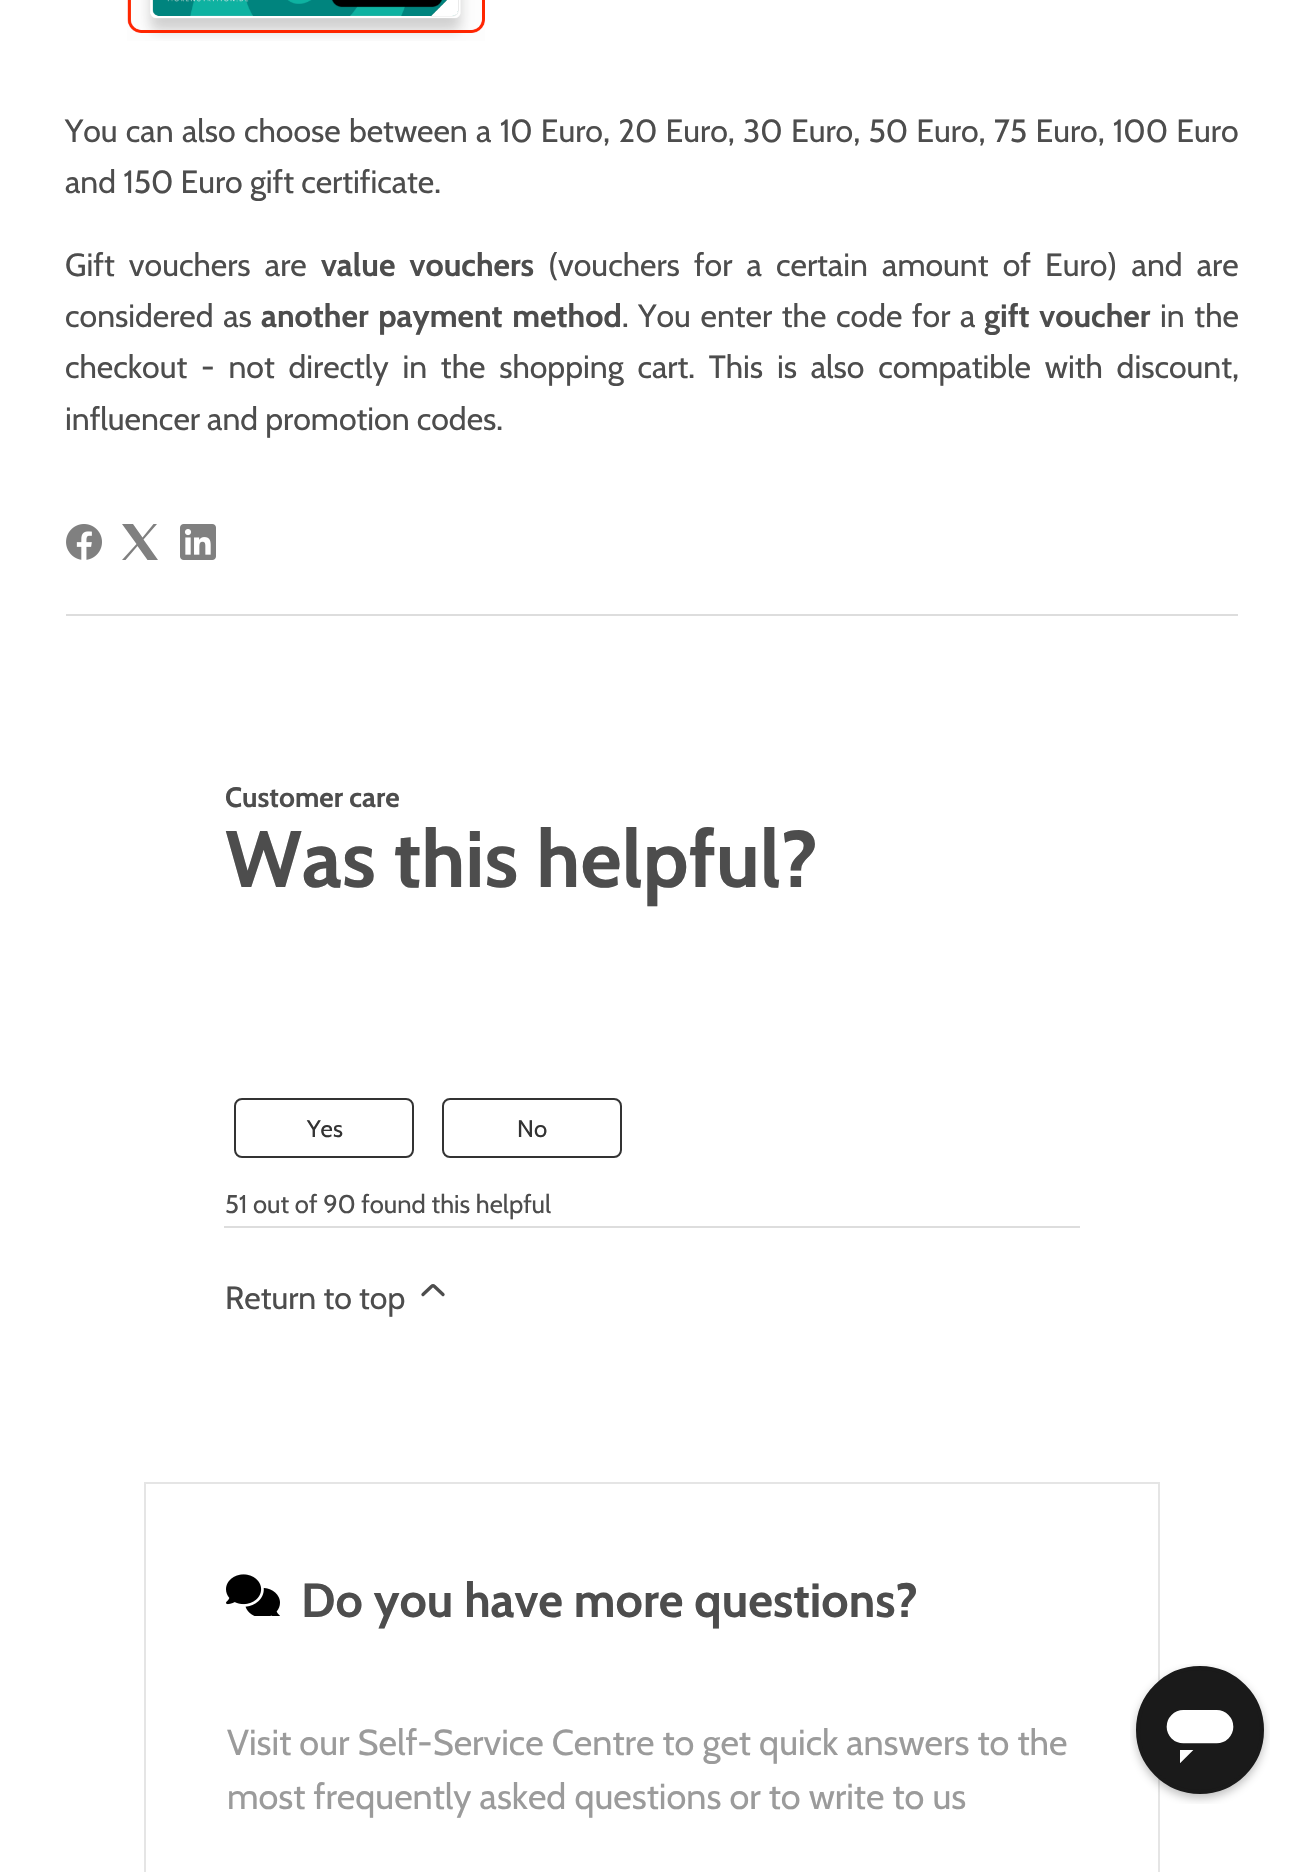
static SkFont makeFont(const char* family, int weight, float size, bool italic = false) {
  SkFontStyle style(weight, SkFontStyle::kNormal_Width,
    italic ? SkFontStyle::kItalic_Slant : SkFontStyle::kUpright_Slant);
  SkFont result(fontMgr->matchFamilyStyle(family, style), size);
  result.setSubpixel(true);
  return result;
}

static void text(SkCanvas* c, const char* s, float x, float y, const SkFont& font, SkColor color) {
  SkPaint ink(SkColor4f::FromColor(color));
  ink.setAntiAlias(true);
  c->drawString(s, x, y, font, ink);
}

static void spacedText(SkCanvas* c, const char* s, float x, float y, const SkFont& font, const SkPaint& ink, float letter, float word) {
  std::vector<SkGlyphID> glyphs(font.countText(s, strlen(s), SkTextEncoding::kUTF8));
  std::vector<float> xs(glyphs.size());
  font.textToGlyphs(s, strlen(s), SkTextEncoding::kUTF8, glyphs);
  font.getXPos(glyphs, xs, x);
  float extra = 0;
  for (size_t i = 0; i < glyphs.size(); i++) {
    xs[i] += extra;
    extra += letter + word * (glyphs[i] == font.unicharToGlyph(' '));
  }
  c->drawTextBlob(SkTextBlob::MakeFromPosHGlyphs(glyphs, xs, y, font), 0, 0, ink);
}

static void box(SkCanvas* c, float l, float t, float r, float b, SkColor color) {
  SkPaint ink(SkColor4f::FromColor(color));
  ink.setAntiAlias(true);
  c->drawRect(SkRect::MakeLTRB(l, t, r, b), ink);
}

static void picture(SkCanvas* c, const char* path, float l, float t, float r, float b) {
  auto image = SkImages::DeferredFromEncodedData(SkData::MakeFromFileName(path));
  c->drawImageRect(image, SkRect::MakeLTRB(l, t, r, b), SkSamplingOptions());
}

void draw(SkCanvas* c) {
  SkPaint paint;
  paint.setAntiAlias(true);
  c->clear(0xffffffff);
  picture(c, "img_01.png", 127, 0, 485, 41);
  SkFont face1 = makeFont("Cabin", 400, 32);
  paint.setColor(0xff4d4d4d);
  spacedText(c, "You can also choose between a 10 Euro, 20 Euro, 30 Euro, 50 Euro, 75 Euro, 100 Euro", 65, 142, face1, paint, 0, 1.1f);
  text(c, "and 150 Euro gift certificate.", 65, 193, face1, 0xff4d4d4d);
  spacedText(c, "Gift vouchers are", 65, 276, face1, paint, 0, 7);
  SkFont face2 = makeFont("Cabin", 700, 32);
  spacedText(c, "value vouchers", 321, 276, face2, paint, 0, 7);
  spacedText(c, "(vouchers for a certain amount of Euro) and are", 548, 276, face1, paint, 0, 7);
  spacedText(c, "considered as", 65, 327, face1, paint, 0, 2.5f);
  spacedText(c, "another payment method", 261, 327, face2, paint, 0, 2.5f);
  spacedText(c, ". You enter the code for a", 622, 327, face1, paint, 0, 2.5f);
  spacedText(c, "gift voucher", 984, 327, face2, paint, 0, 2.5f);
  spacedText(c, "in the", 1160, 327, face1, paint, 0, 2.5f);
  spacedText(c, "checkout - not directly in the shopping cart. This is also compatible with discount,", 65, 378, face1, paint, 0, 6.6f);
  text(c, "influencer and promotion codes.", 65, 430, face1, 0xff4d4d4d);
  picture(c, "img_02.png", 66, 524, 102, 560);
  paint.setColor(0xff808080);
  c->drawPath(SkPathBuilder().moveTo(122, 524).lineTo(133, 524).lineTo(142.5f, 537.5f).lineTo(153.5f, 524).lineTo(157, 524).lineTo(143.5f, 539.5f).lineTo(158, 560).lineTo(147.5f, 560).lineTo(137.5f, 546).lineTo(125.5f, 560).lineTo(122, 560).lineTo(136.5f, 544).close().detach(), paint);
  picture(c, "img_03.png", 180, 524, 216, 560);
  box(c, 66, 614, 1238, 616, 0xffdddddd);
  SkFont face3 = makeFont("Cabin", 700, 28);
  text(c, "Customer care", 225, 807, face3, 0xff4d4d4d);
  SkFont face4 = makeFont("Cabin", 700, 80);
  text(c, "Was this helpful?", 225, 887, face4, 0xff4d4d4d);
  paint.setStyle(SkPaint::kStroke_Style);
  paint.setStrokeWidth(2);
  paint.setColor(0xff333333);
  c->drawRoundRect(SkRect::MakeLTRB(235, 1099, 413, 1157), 7, 7, paint);
  SkFont face5 = makeFont("Cabin", 400, 24);
  text(c, "Yes", 307, 1137, face5, 0xff333333);
  c->drawRoundRect(SkRect::MakeLTRB(443, 1099, 621, 1157), 7, 7, paint);
  text(c, "No", 517, 1137, face5, 0xff333333);
  SkFont face6 = makeFont("Cabin", 400, 25.6f);
  text(c, "51 out of 90 found this helpful", 225, 1213, face6, 0xff4d4d4d);
  box(c, 224, 1226, 1080, 1228, 0xffdddddd);
  text(c, "Return to top", 225, 1309, face1, 0xff4d4d4d);
  paint.setStrokeWidth(3.3f);
  paint.setStrokeCap(SkPaint::kRound_Cap);
  paint.setColor(0xff4d4d4d);
  c->drawPath(SkPathBuilder().moveTo(443, 1294.5f).lineTo(434, 1286).cubicTo(433.5f, 1285.5f, 432.5f, 1285.5f, 432, 1286).lineTo(423, 1294.5f).detach(), paint);
  paint.setStrokeWidth(2);
  paint.setStrokeCap(SkPaint::kButt_Cap);
  paint.setColor(0xffe5e5e5);
  c->drawRect(SkRect::MakeLTRB(145, 1483, 1159, 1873), paint);
  picture(c, "img_04.png", 226, 1574, 280, 1616);
  SkFont face7 = makeFont("Cabin", 700, 48);
  text(c, "Do you have more questions?", 301, 1617, face7, 0xff4d4d4d);
  SkFont face8 = makeFont("Cabin", 400, 36);
  text(c, "Visit our Self-Service Centre to get quick answers to the", 227, 1755, face8, 0xff9b9b9b);
  text(c, "most frequently asked questions or to write to us", 227, 1809, face8, 0xff9b9b9b);
  picture(c, "img_05.png", 1130, 1664, 1270, 1804);
}
